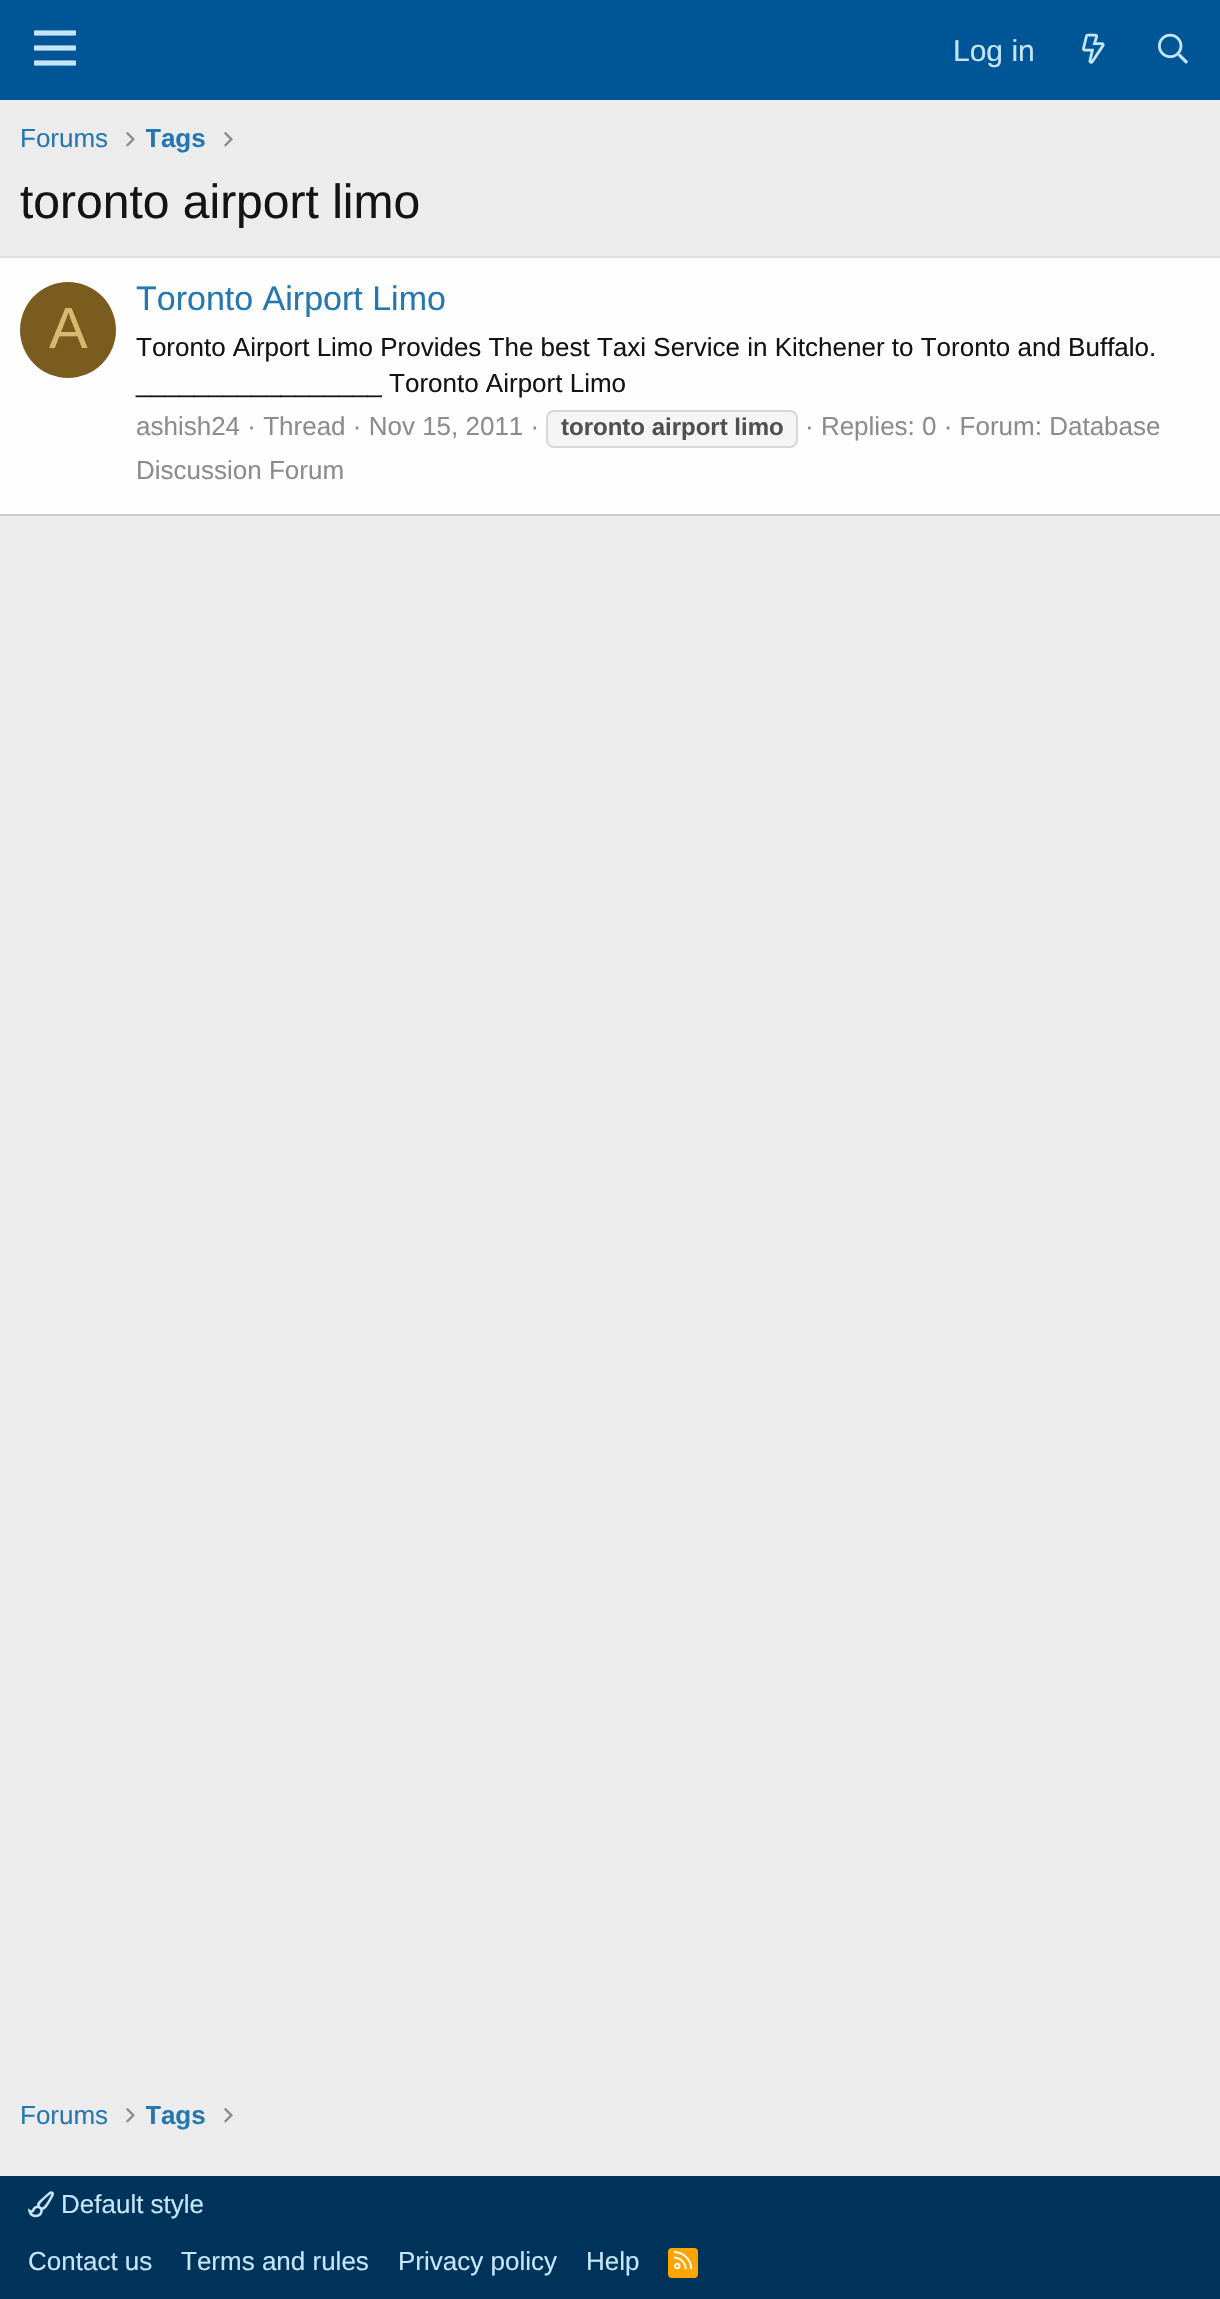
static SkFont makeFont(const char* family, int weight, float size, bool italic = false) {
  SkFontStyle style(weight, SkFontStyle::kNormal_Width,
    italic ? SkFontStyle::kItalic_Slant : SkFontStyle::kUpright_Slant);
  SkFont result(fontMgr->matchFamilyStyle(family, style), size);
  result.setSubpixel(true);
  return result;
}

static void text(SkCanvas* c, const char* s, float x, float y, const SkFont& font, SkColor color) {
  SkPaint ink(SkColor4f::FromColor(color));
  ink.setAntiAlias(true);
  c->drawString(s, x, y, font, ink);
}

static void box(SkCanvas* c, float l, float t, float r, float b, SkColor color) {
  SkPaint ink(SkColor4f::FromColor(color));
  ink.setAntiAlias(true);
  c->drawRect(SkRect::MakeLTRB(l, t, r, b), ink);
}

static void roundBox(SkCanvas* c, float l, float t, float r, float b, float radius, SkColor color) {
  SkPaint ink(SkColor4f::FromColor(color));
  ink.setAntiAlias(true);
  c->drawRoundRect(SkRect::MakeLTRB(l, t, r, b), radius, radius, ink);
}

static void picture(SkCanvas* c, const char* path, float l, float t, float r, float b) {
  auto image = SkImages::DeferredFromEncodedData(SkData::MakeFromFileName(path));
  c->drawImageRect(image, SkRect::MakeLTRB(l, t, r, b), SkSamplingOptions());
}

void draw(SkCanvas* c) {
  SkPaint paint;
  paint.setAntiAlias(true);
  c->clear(0xffececec);
  box(c, 0, 0, 1220, 100, 0xff005597);
  picture(c, "img_01.png", 34, 30, 76, 66);
  SkFont face1 = makeFont("Liberation Sans", 400, 30);
  text(c, "Log in", 953, 61, face1, 0xffc5e5f8);
  picture(c, "img_02.png", 1082, 33, 1105, 64);
  picture(c, "img_03.png", 1158, 33, 1188, 64);
  SkFont face2 = makeFont("Liberation Sans", 400, 26);
  text(c, "Forums", 20, 147, face2, 0xff2577b1);
  picture(c, "img_04.png", 126, 132, 135, 147);
  c->save();
  c->clipRect(SkRect::MakeLTRB(146, 120, 206, 158));
  SkFont face3 = makeFont("Liberation Sans", 700, 26);
  text(c, "Tags", 145, 147, face3, 0xff2577b1);
  c->restore();
  picture(c, "img_04.png", 224, 132, 233, 147);
  SkFont face4 = makeFont("Liberation Sans", 400, 48);
  text(c, "toronto airport limo", 20, 218, face4, 0xff141414);
  box(c, 0, 258, 1220, 514, 0xfffefefe);
  box(c, 0, 256, 1220, 258, 0xffdfdfdf);
  box(c, 0, 514, 1220, 516, 0xffcbcbcb);
  paint.setColor(0xff7a5c1f);
  c->drawCircle(68, 330, 48, paint);
  SkFont face5 = makeFont("Liberation Sans", 400, 58);
  text(c, "A", 49, 348, face5, 0xffdbb870);
  SkFont face6 = makeFont("Liberation Sans", 400, 34);
  text(c, "Toronto Airport Limo", 136, 310, face6, 0xff2577b1);
  text(c, "Toronto Airport Limo Provides The best Taxi Service in Kitchener to Toronto and Buffalo.", 136, 356, face2, 0xff141414);
  text(c, "_________________ Toronto Airport Limo", 136, 392, face2, 0xff141414);
  text(c, "ashish24 · Thread · Nov 15, 2011 ·", 136, 435, face2, 0xff8c8c8c);
  paint.setColor(0xfff5f5f5);
  c->drawRoundRect(SkRect::MakeLTRB(547, 411, 797, 447), 7, 7, paint);
  paint.setStyle(SkPaint::kStroke_Style);
  paint.setStrokeWidth(2);
  paint.setColor(0xffd8d8d8);
  c->drawRoundRect(SkRect::MakeLTRB(547, 411, 797, 447), 7, 7, paint);
  SkFont face7 = makeFont("Liberation Sans", 700, 24);
  text(c, "toronto airport limo", 561, 435, face7, 0xff505050);
  text(c, "· Replies: 0 · Forum: Database", 805, 435, face2, 0xff8c8c8c);
  text(c, "Discussion Forum", 136, 479, face2, 0xff8c8c8c);
  text(c, "Forums", 20, 2124, face2, 0xff2577b1);
  picture(c, "img_04.png", 126, 2108, 135, 2123);
  c->save();
  c->clipRect(SkRect::MakeLTRB(146, 2096, 206, 2136));
  text(c, "Tags", 145, 2124, face3, 0xff2577b1);
  c->restore();
  picture(c, "img_04.png", 224, 2108, 233, 2123);
  box(c, 0, 2176, 1220, 2299, 0xff00335a);
  picture(c, "img_05.png", 28, 2191, 54, 2218);
  text(c, "Default style", 61, 2213, face2, 0xffc5e5f8);
  text(c, "Contact us", 28, 2270, face2, 0xffc5e5f8);
  text(c, "Terms and rules", 181, 2270, face2, 0xffc5e5f8);
  text(c, "Privacy policy", 398, 2270, face2, 0xffc5e5f8);
  text(c, "Help", 586, 2270, face2, 0xffc5e5f8);
  roundBox(c, 668, 2248, 698, 2278, 4, 0xffffa500);
  picture(c, "img_06.png", 674, 2251, 693, 2270);
}
